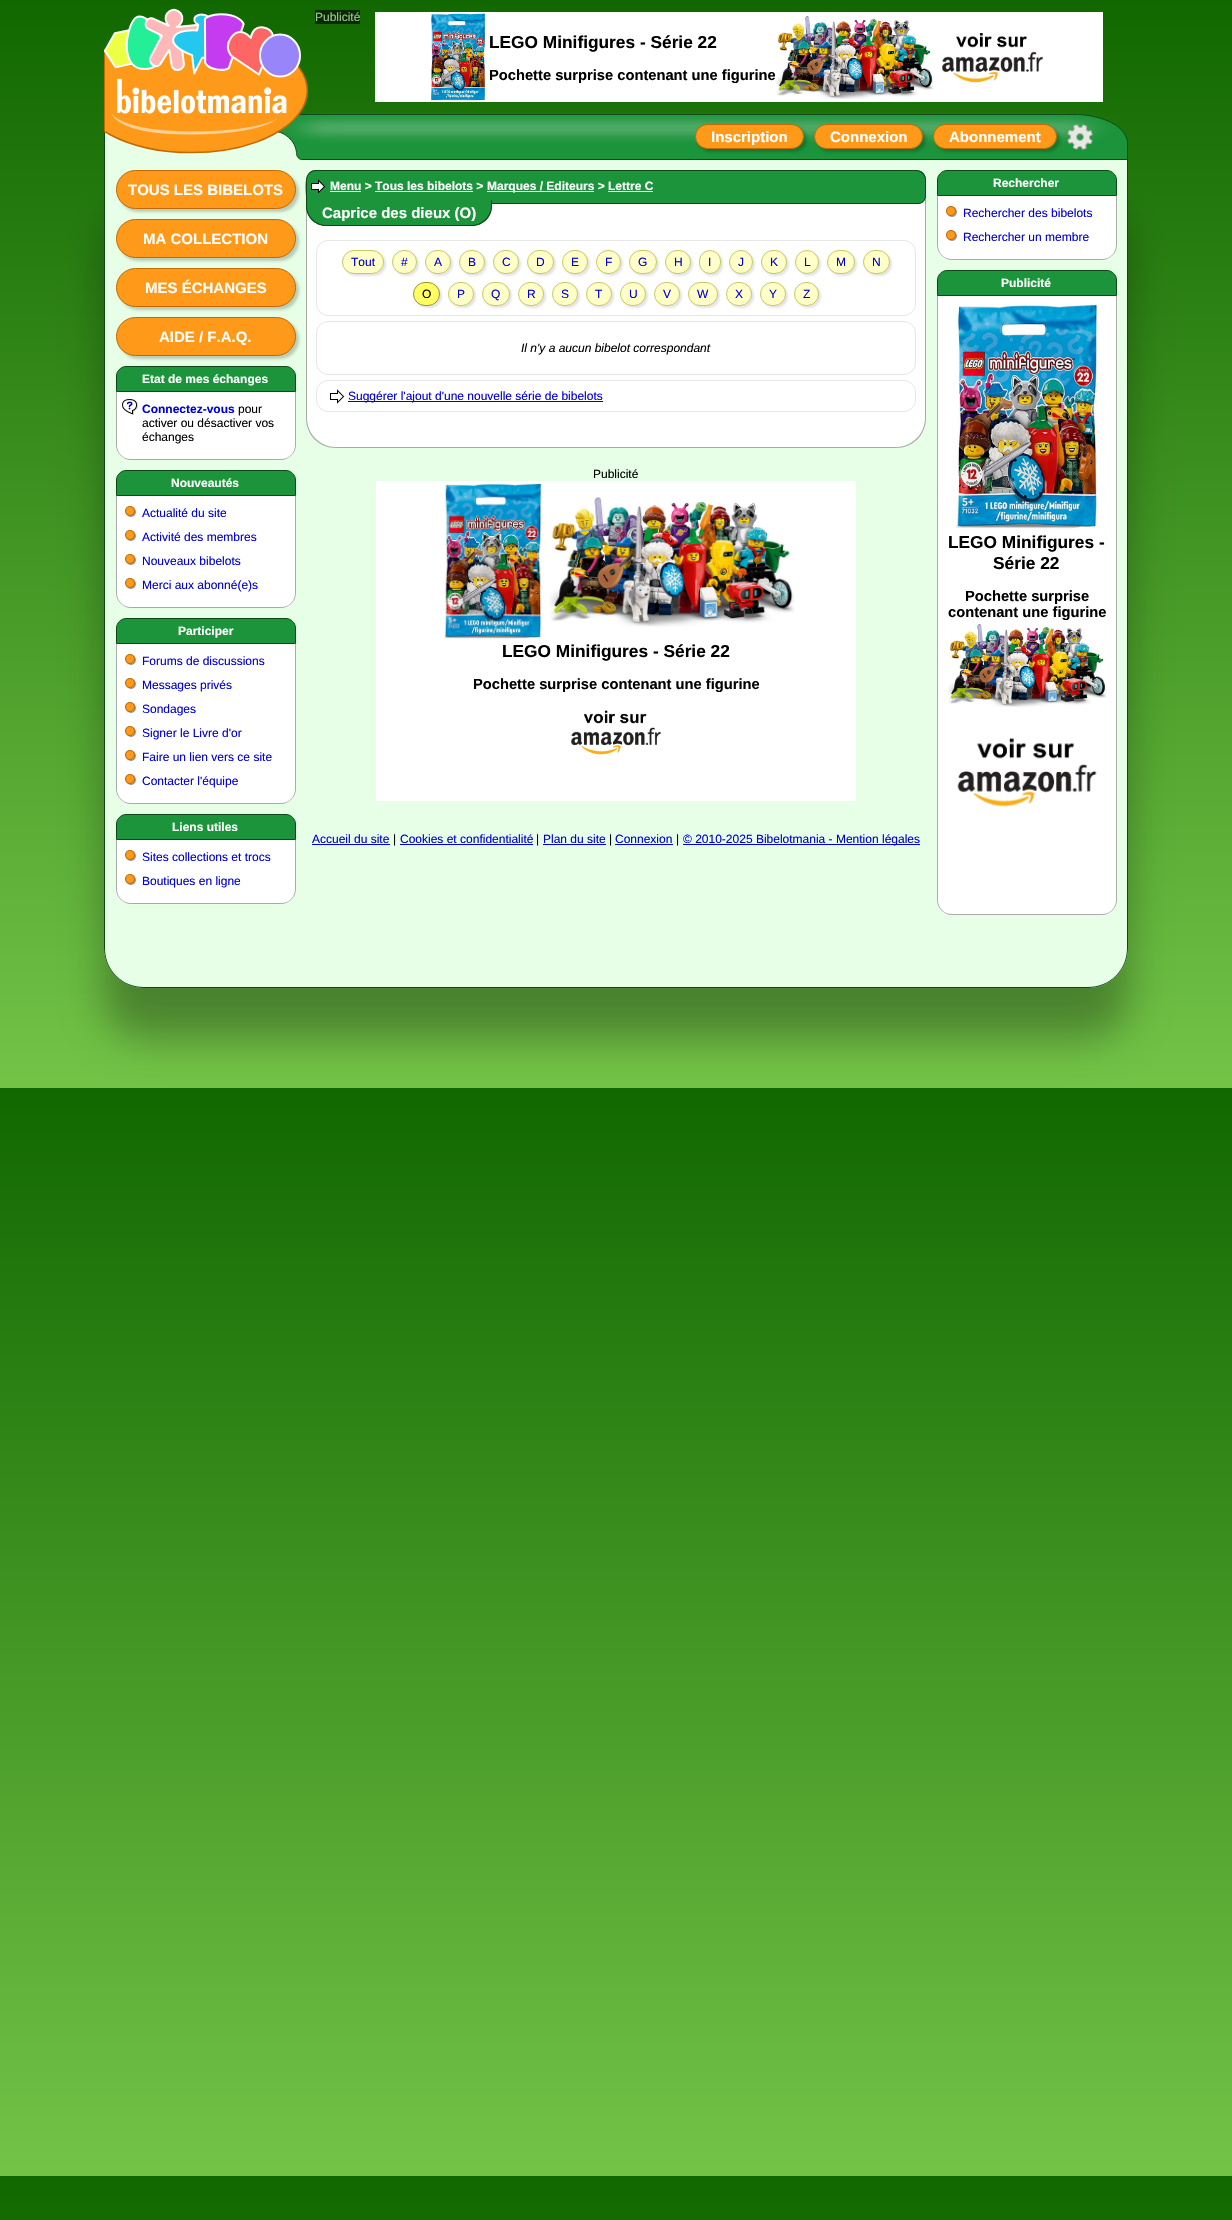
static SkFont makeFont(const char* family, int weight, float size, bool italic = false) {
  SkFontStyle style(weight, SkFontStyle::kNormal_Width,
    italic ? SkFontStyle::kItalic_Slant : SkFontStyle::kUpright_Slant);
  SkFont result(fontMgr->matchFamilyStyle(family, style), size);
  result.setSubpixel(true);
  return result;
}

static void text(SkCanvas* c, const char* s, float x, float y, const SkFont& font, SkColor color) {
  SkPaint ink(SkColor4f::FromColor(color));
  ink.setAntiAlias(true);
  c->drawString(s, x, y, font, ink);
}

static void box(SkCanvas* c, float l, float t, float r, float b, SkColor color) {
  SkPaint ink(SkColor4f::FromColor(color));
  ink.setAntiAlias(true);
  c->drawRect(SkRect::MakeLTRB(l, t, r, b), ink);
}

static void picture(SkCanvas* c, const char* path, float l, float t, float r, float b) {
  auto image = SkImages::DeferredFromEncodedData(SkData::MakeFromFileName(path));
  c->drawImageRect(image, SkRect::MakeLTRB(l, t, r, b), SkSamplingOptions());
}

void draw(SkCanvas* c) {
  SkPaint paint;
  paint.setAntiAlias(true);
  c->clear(0xffffffff);
  {
    const SkColor colors[] = {0xff116800, 0xff98e662};
    const float stops[] = {0, 1};
    const SkPoint ends[] = {{616, 0}, {616, 1500}};
    paint.setShader(SkGradientShader::MakeLinear(ends, colors, stops, 2, SkTileMode::kClamp));
    paint.setAlpha(255);
  }
  c->drawRect(SkRect::MakeLTRB(0, 0, 1232, 1088), paint);
  {
    const SkColor colors[] = {0xff116800, 0xff98e662};
    const float stops[] = {0, 1};
    const SkPoint ends[] = {{616, 1088}, {616, 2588}};
    paint.setShader(SkGradientShader::MakeLinear(ends, colors, stops, 2, SkTileMode::kClamp));
    paint.setAlpha(255);
  }
  c->drawRect(SkRect::MakeLTRB(0, 1088, 1232, 2176), paint);
  {
    const SkColor colors[] = {0xff116800, 0xff98e662};
    const float stops[] = {0, 1};
    const SkPoint ends[] = {{616, 2176}, {616, 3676}};
    paint.setShader(SkGradientShader::MakeLinear(ends, colors, stops, 2, SkTileMode::kClamp));
    paint.setAlpha(255);
  }
  c->drawRect(SkRect::MakeLTRB(0, 2176, 1232, 2220), paint);
  picture(c, "img_14.png", 104, 8, 1128, 160);
  picture(c, "img_16.png", 1067, 124, 1093, 150);
  paint.setShader(nullptr);
  paint.setColor(0x4d000000);
  paint.setMaskFilter(SkMaskFilter::MakeBlur(kNormal_SkBlurStyle, 20));
  c->drawRoundRect(SkRect::MakeLTRB(104, 210, 1128, 1038), 40, 40, paint);
  paint.setMaskFilter(nullptr);
  paint.setColor(0xffe6ffe6);
  c->drawPath(SkPathBuilder().moveTo(104, 160).lineTo(1128, 160).lineTo(1128, 948).cubicTo(1128, 970, 1110, 988, 1088, 988).lineTo(144, 988).cubicTo(122, 988, 104, 970, 104, 948).close().detach(), paint);
  paint.setColor(0xff0d4916);
  c->drawPath(SkPathBuilder(SkPathFillType::kEvenOdd).moveTo(104, 160).lineTo(1128, 160).lineTo(1128, 948).cubicTo(1128, 970, 1110, 988, 1088, 988).lineTo(144, 988).cubicTo(122, 988, 104, 970, 104, 948).close().moveTo(105, 160).lineTo(1127, 160).lineTo(1127, 948).cubicTo(1127, 970, 1110, 987, 1088, 987).lineTo(144, 987).cubicTo(122, 987, 105, 970, 105, 948).close().detach(), paint);
  box(c, 315, 10, 360, 24, 0xff072a00);
  SkFont face1 = makeFont("Liberation Sans", 400, 12);
  text(c, "Publicité", 315, 21, face1, 0xffa0c399);
  box(c, 375, 12, 1103, 102, 0xffffffff);
  picture(c, "img_01.png", 430, 13, 485, 101);
  SkFont face2 = makeFont("Liberation Sans", 700, 17.3f);
  text(c, "LEGO Minifigures - Série 22", 489, 48, face2, 0xff000000);
  c->save();
  c->clipRect(SkRect::MakeLTRB(489, 32, 775, 83));
  SkFont face3 = makeFont("Liberation Sans", 700, 14.7f);
  text(c, "Pochette surprise contenant une figurine", 489, 80, face3, 0xff000000);
  c->restore();
  picture(c, "img_02.png", 776, 16, 934, 99);
  picture(c, "img_03.png", 942, 33, 1043, 83);
  paint.setColor(0x33000000);
  paint.setMaskFilter(SkMaskFilter::MakeBlur(kNormal_SkBlurStyle, 1.5f));
  c->drawRoundRect(SkRect::MakeLTRB(119, 173, 299, 212), 19.5f, 19.5f, paint);
  paint.setMaskFilter(nullptr);
  paint.setColor(0xffff991a);
  c->drawRoundRect(SkRect::MakeLTRB(116.5f, 170.5f, 295.5f, 208.5f), 19, 19, paint);
  paint.setStyle(SkPaint::kStroke_Style);
  paint.setStrokeWidth(1);
  paint.setColor(0xffc26a00);
  c->drawRoundRect(SkRect::MakeLTRB(116.5f, 170.5f, 295.5f, 208.5f), 19, 19, paint);
  SkFont face4 = makeFont("Liberation Sans", 700, 15);
  text(c, "TOUS LES BIBELOTS", 128, 195, face4, 0xffffffff);
  paint.setStyle(SkPaint::kFill_Style);
  paint.setColor(0x33000000);
  paint.setMaskFilter(SkMaskFilter::MakeBlur(kNormal_SkBlurStyle, 1.5f));
  c->drawRoundRect(SkRect::MakeLTRB(119, 222, 299, 261), 19.5f, 19.5f, paint);
  paint.setMaskFilter(nullptr);
  paint.setColor(0xffff991a);
  c->drawRoundRect(SkRect::MakeLTRB(116.5f, 219.5f, 295.5f, 257.5f), 19, 19, paint);
  paint.setStyle(SkPaint::kStroke_Style);
  paint.setColor(0xffc26a00);
  c->drawRoundRect(SkRect::MakeLTRB(116.5f, 219.5f, 295.5f, 257.5f), 19, 19, paint);
  text(c, "MA COLLECTION", 143, 244, face4, 0xffffffff);
  paint.setStyle(SkPaint::kFill_Style);
  paint.setColor(0x33000000);
  paint.setMaskFilter(SkMaskFilter::MakeBlur(kNormal_SkBlurStyle, 1.5f));
  c->drawRoundRect(SkRect::MakeLTRB(119, 271, 299, 310), 19.5f, 19.5f, paint);
  paint.setMaskFilter(nullptr);
  paint.setColor(0xffff991a);
  c->drawRoundRect(SkRect::MakeLTRB(116.5f, 268.5f, 295.5f, 306.5f), 19, 19, paint);
  paint.setStyle(SkPaint::kStroke_Style);
  paint.setColor(0xffc26a00);
  c->drawRoundRect(SkRect::MakeLTRB(116.5f, 268.5f, 295.5f, 306.5f), 19, 19, paint);
  text(c, "MES ÉCHANGES", 145, 293, face4, 0xffffffff);
  paint.setStyle(SkPaint::kFill_Style);
  paint.setColor(0x33000000);
  paint.setMaskFilter(SkMaskFilter::MakeBlur(kNormal_SkBlurStyle, 1.5f));
  c->drawRoundRect(SkRect::MakeLTRB(119, 320, 299, 359), 19.5f, 19.5f, paint);
  paint.setMaskFilter(nullptr);
  paint.setColor(0xffff991a);
  c->drawRoundRect(SkRect::MakeLTRB(116.5f, 317.5f, 295.5f, 355.5f), 19, 19, paint);
  paint.setStyle(SkPaint::kStroke_Style);
  paint.setColor(0xffc26a00);
  c->drawRoundRect(SkRect::MakeLTRB(116.5f, 317.5f, 295.5f, 355.5f), 19, 19, paint);
  text(c, "AIDE / F.A.Q.", 159, 342, face4, 0xffffffff);
  paint.setStyle(SkPaint::kFill_Style);
  paint.setColor(0xff1b943b);
  c->drawPath(SkPathBuilder().moveTo(126, 366.5f).lineTo(286, 366.5f).cubicTo(291, 366.5f, 295.5f, 371, 295.5f, 376).lineTo(295.5f, 391.5f).lineTo(116.5f, 391.5f).lineTo(116.5f, 376).cubicTo(116.5f, 371, 121, 366.5f, 126, 366.5f).close().detach(), paint);
  paint.setStyle(SkPaint::kStroke_Style);
  paint.setColor(0xff0d4916);
  c->drawPath(SkPathBuilder().moveTo(126, 366.5f).lineTo(286, 366.5f).cubicTo(291, 366.5f, 295.5f, 371, 295.5f, 376).lineTo(295.5f, 391.5f).lineTo(116.5f, 391.5f).lineTo(116.5f, 376).cubicTo(116.5f, 371, 121, 366.5f, 126, 366.5f).close().detach(), paint);
  SkFont face5 = makeFont("Liberation Sans", 700, 12);
  text(c, "Etat de mes échanges", 142, 383, face5, 0xffffffff);
  paint.setStyle(SkPaint::kFill_Style);
  paint.setColor(0xffffffff);
  c->drawPath(SkPathBuilder().moveTo(116, 392).lineTo(296, 392).lineTo(296, 445).cubicTo(296, 453.5f, 289.5f, 460, 281, 460).lineTo(131, 460).cubicTo(122.5f, 460, 116, 453.5f, 116, 445).close().detach(), paint);
  paint.setColor(0xffaaaaaa);
  c->drawPath(SkPathBuilder(SkPathFillType::kEvenOdd).moveTo(116, 392).lineTo(296, 392).lineTo(296, 445).cubicTo(296, 453, 289, 460, 281, 460).lineTo(131, 460).cubicTo(123, 460, 116, 453, 116, 445).close().moveTo(117, 392).lineTo(295, 392).lineTo(295, 445).cubicTo(295, 453, 289, 459, 281, 459).lineTo(131, 459).cubicTo(123, 459, 117, 453, 117, 445).close().detach(), paint);
  picture(c, "img_04.png", 122, 399, 138, 415);
  text(c, "Connectez-vous", 142, 413, face5, 0xff0000dc);
  text(c, "pour", 238, 413, face1, 0xff000000);
  text(c, "activer ou désactiver vos", 142, 427, face1, 0xff000000);
  text(c, "échanges", 142, 441, face1, 0xff000000);
  paint.setColor(0xff1b943b);
  c->drawPath(SkPathBuilder().moveTo(126, 470.5f).lineTo(286, 470.5f).cubicTo(291, 470.5f, 295.5f, 475, 295.5f, 480).lineTo(295.5f, 495.5f).lineTo(116.5f, 495.5f).lineTo(116.5f, 480).cubicTo(116.5f, 475, 121, 470.5f, 126, 470.5f).close().detach(), paint);
  paint.setStyle(SkPaint::kStroke_Style);
  paint.setColor(0xff0d4916);
  c->drawPath(SkPathBuilder().moveTo(126, 470.5f).lineTo(286, 470.5f).cubicTo(291, 470.5f, 295.5f, 475, 295.5f, 480).lineTo(295.5f, 495.5f).lineTo(116.5f, 495.5f).lineTo(116.5f, 480).cubicTo(116.5f, 475, 121, 470.5f, 126, 470.5f).close().detach(), paint);
  text(c, "Nouveautés", 171, 487, face5, 0xffffffff);
  paint.setStyle(SkPaint::kFill_Style);
  paint.setColor(0xffffffff);
  c->drawPath(SkPathBuilder().moveTo(116, 496).lineTo(296, 496).lineTo(296, 593).cubicTo(296, 601.5f, 289.5f, 608, 281, 608).lineTo(131, 608).cubicTo(122.5f, 608, 116, 601.5f, 116, 593).close().detach(), paint);
  paint.setColor(0xffaaaaaa);
  c->drawPath(SkPathBuilder(SkPathFillType::kEvenOdd).moveTo(116, 496).lineTo(296, 496).lineTo(296, 593).cubicTo(296, 601, 289, 608, 281, 608).lineTo(131, 608).cubicTo(123, 608, 116, 601, 116, 593).close().moveTo(117, 496).lineTo(295, 496).lineTo(295, 593).cubicTo(295, 601, 289, 607, 281, 607).lineTo(131, 607).cubicTo(123, 607, 117, 601, 117, 593).close().detach(), paint);
  picture(c, "img_05.png", 125, 506, 136, 517);
  text(c, "Actualité du site", 142, 517, face1, 0xff0000dc);
  picture(c, "img_05.png", 125, 530, 136, 541);
  text(c, "Activité des membres", 142, 541, face1, 0xff0000dc);
  picture(c, "img_05.png", 125, 554, 136, 565);
  text(c, "Nouveaux bibelots", 142, 565, face1, 0xff0000dc);
  picture(c, "img_05.png", 125, 578, 136, 589);
  text(c, "Merci aux abonné(e)s", 142, 589, face1, 0xff0000dc);
  paint.setColor(0xff1b943b);
  c->drawPath(SkPathBuilder().moveTo(126, 618.5f).lineTo(286, 618.5f).cubicTo(291, 618.5f, 295.5f, 623, 295.5f, 628).lineTo(295.5f, 643.5f).lineTo(116.5f, 643.5f).lineTo(116.5f, 628).cubicTo(116.5f, 623, 121, 618.5f, 126, 618.5f).close().detach(), paint);
  paint.setStyle(SkPaint::kStroke_Style);
  paint.setColor(0xff0d4916);
  c->drawPath(SkPathBuilder().moveTo(126, 618.5f).lineTo(286, 618.5f).cubicTo(291, 618.5f, 295.5f, 623, 295.5f, 628).lineTo(295.5f, 643.5f).lineTo(116.5f, 643.5f).lineTo(116.5f, 628).cubicTo(116.5f, 623, 121, 618.5f, 126, 618.5f).close().detach(), paint);
  text(c, "Participer", 178, 635, face5, 0xffffffff);
  paint.setStyle(SkPaint::kFill_Style);
  paint.setColor(0xffffffff);
  c->drawPath(SkPathBuilder().moveTo(116, 644).lineTo(296, 644).lineTo(296, 789).cubicTo(296, 797.5f, 289.5f, 804, 281, 804).lineTo(131, 804).cubicTo(122.5f, 804, 116, 797.5f, 116, 789).close().detach(), paint);
  paint.setColor(0xffaaaaaa);
  c->drawPath(SkPathBuilder(SkPathFillType::kEvenOdd).moveTo(116, 644).lineTo(296, 644).lineTo(296, 789).cubicTo(296, 797, 289, 804, 281, 804).lineTo(131, 804).cubicTo(123, 804, 116, 797, 116, 789).close().moveTo(117, 644).lineTo(295, 644).lineTo(295, 789).cubicTo(295, 797, 289, 803, 281, 803).lineTo(131, 803).cubicTo(123, 803, 117, 797, 117, 789).close().detach(), paint);
  picture(c, "img_05.png", 125, 654, 136, 665);
  text(c, "Forums de discussions", 142, 665, face1, 0xff0000dc);
  picture(c, "img_05.png", 125, 678, 136, 689);
  text(c, "Messages privés", 142, 689, face1, 0xff0000dc);
  picture(c, "img_05.png", 125, 702, 136, 713);
  text(c, "Sondages", 142, 713, face1, 0xff0000dc);
  picture(c, "img_05.png", 125, 726, 136, 737);
  text(c, "Signer le Livre d'or", 142, 737, face1, 0xff0000dc);
  picture(c, "img_05.png", 125, 750, 136, 761);
  text(c, "Faire un lien vers ce site", 142, 761, face1, 0xff0000dc);
  picture(c, "img_05.png", 125, 774, 136, 785);
  text(c, "Contacter l'équipe", 142, 785, face1, 0xff0000dc);
  paint.setColor(0xff1b943b);
  c->drawPath(SkPathBuilder().moveTo(126, 814.5f).lineTo(286, 814.5f).cubicTo(291, 814.5f, 295.5f, 819, 295.5f, 824).lineTo(295.5f, 839.5f).lineTo(116.5f, 839.5f).lineTo(116.5f, 824).cubicTo(116.5f, 819, 121, 814.5f, 126, 814.5f).close().detach(), paint);
  paint.setStyle(SkPaint::kStroke_Style);
  paint.setColor(0xff0d4916);
  c->drawPath(SkPathBuilder().moveTo(126, 814.5f).lineTo(286, 814.5f).cubicTo(291, 814.5f, 295.5f, 819, 295.5f, 824).lineTo(295.5f, 839.5f).lineTo(116.5f, 839.5f).lineTo(116.5f, 824).cubicTo(116.5f, 819, 121, 814.5f, 126, 814.5f).close().detach(), paint);
  text(c, "Liens utiles", 172, 831, face5, 0xffffffff);
  paint.setStyle(SkPaint::kFill_Style);
  paint.setColor(0xffffffff);
  c->drawPath(SkPathBuilder().moveTo(116, 840).lineTo(296, 840).lineTo(296, 889).cubicTo(296, 897.5f, 289.5f, 904, 281, 904).lineTo(131, 904).cubicTo(122.5f, 904, 116, 897.5f, 116, 889).close().detach(), paint);
  paint.setColor(0xffaaaaaa);
  c->drawPath(SkPathBuilder(SkPathFillType::kEvenOdd).moveTo(116, 840).lineTo(296, 840).lineTo(296, 889).cubicTo(296, 897, 289, 904, 281, 904).lineTo(131, 904).cubicTo(123, 904, 116, 897, 116, 889).close().moveTo(117, 840).lineTo(295, 840).lineTo(295, 889).cubicTo(295, 897, 289, 903, 281, 903).lineTo(131, 903).cubicTo(123, 903, 117, 897, 117, 889).close().detach(), paint);
  picture(c, "img_05.png", 125, 850, 136, 861);
  text(c, "Sites collections et trocs", 142, 861, face1, 0xff0000dc);
  picture(c, "img_05.png", 125, 874, 136, 885);
  text(c, "Boutiques en ligne", 142, 885, face1, 0xff0000dc);
  paint.setColor(0xff1b943b);
  c->drawPath(SkPathBuilder().moveTo(316, 170).lineTo(916, 170).cubicTo(921.5f, 170, 926, 174.5f, 926, 180).lineTo(926, 196).lineTo(306, 196).lineTo(306, 180).cubicTo(306, 174.5f, 310.5f, 170, 316, 170).close().detach(), paint);
  paint.setColor(0xff0d4916);
  c->drawPath(SkPathBuilder(SkPathFillType::kEvenOdd).moveTo(316, 170).lineTo(916, 170).cubicTo(922, 170, 926, 174, 926, 180).lineTo(926, 196).lineTo(306, 196).cubicTo(306, 188, 303, 170, 316, 170).close().moveTo(316, 171).lineTo(916, 171).cubicTo(921, 171, 925, 175, 925, 180).lineTo(925, 196).lineTo(307, 196).lineTo(307, 180).cubicTo(307, 175, 311, 171, 316, 171).close().detach(), paint);
  picture(c, "img_06.png", 311, 179, 326, 193);
  text(c, "Menu > Tous les bibelots >", 330, 190, face5, 0xffffffff);
  box(c, 330, 191, 361, 192, 0xffffffff);
  box(c, 487, 191, 594, 192, 0xffffffff);
  text(c, "Marques / Editeurs > Lettre C", 487, 190, face5, 0xffffffff);
  box(c, 375, 191, 473, 192, 0xffffffff);
  box(c, 608, 191, 653, 192, 0xffffffff);
  box(c, 307, 199, 925, 226, 0xffffffff);
  box(c, 925, 196, 926, 226, 0xffaaaaaa);
  box(c, 306, 206, 307, 226, 0xffaaaaaa);
  paint.setColor(0xff1b943b);
  c->drawPath(SkPathBuilder().moveTo(306, 196).lineTo(926, 196).cubicTo(926, 200.5f, 922.5f, 204, 918, 204).lineTo(306, 204).close().detach(), paint);
  paint.setColor(0xff0d4916);
  c->drawPath(SkPathBuilder(SkPathFillType::kEvenOdd).moveTo(306, 196).lineTo(926, 196).cubicTo(926, 200, 922, 204, 918, 204).lineTo(306, 204).close().moveTo(307, 196).lineTo(925, 196).cubicTo(925, 200, 922, 203, 918, 203).lineTo(307, 203).close().detach(), paint);
  paint.setColor(0xff1b943b);
  c->drawPath(SkPathBuilder().moveTo(306, 200).lineTo(492, 200).lineTo(492, 206).cubicTo(492, 217, 483, 226, 472, 226).lineTo(326, 226).cubicTo(315, 226, 306, 217, 306, 206).close().detach(), paint);
  paint.setColor(0xff0d4916);
  c->drawPath(SkPathBuilder(SkPathFillType::kEvenOdd).moveTo(306, 200).lineTo(492, 200).lineTo(492, 206).cubicTo(492, 217, 483, 226, 472, 226).lineTo(326, 226).cubicTo(315, 226, 306, 217, 306, 206).close().moveTo(307, 200).lineTo(491, 200).lineTo(491, 206).cubicTo(491, 216, 482, 225, 472, 225).lineTo(326, 225).cubicTo(316, 225, 307, 216, 307, 206).close().detach(), paint);
  text(c, "Caprice des dieux (O)", 322, 218, face4, 0xffffffff);
  paint.setColor(0xffffffff);
  c->drawPath(SkPathBuilder().moveTo(306, 226).lineTo(926, 226).lineTo(926, 418).cubicTo(926, 434.5f, 912.5f, 448, 896, 448).lineTo(336, 448).cubicTo(319.5f, 448, 306, 434.5f, 306, 418).close().detach(), paint);
  paint.setColor(0xffaaaaaa);
  c->drawPath(SkPathBuilder(SkPathFillType::kEvenOdd).moveTo(306, 226).lineTo(926, 226).lineTo(926, 418).cubicTo(926, 435, 913, 448, 896, 448).lineTo(336, 448).cubicTo(319, 448, 306, 435, 306, 418).close().moveTo(307, 226).lineTo(925, 226).lineTo(925, 418).cubicTo(925, 434, 912, 447, 896, 447).lineTo(336, 447).cubicTo(320, 447, 307, 434, 307, 418).close().detach(), paint);
  paint.setStyle(SkPaint::kStroke_Style);
  paint.setColor(0xffe6e6e6);
  c->drawRoundRect(SkRect::MakeLTRB(316.5f, 240.5f, 915.5f, 315.5f), 11.5f, 11.5f, paint);
  paint.setStyle(SkPaint::kFill_Style);
  paint.setColor(0x1a000000);
  paint.setMaskFilter(SkMaskFilter::MakeBlur(kNormal_SkBlurStyle, 1));
  c->drawRoundRect(SkRect::MakeLTRB(344, 252, 386, 276), 12, 12, paint);
  paint.setMaskFilter(nullptr);
  paint.setColor(0xffffffc8);
  c->drawRoundRect(SkRect::MakeLTRB(342.5f, 250.5f, 383.5f, 273.5f), 11.5f, 11.5f, paint);
  paint.setStyle(SkPaint::kStroke_Style);
  paint.setColor(0xffc8c864);
  c->drawRoundRect(SkRect::MakeLTRB(342.5f, 250.5f, 383.5f, 273.5f), 11.5f, 11.5f, paint);
  text(c, "Tout", 351, 266, face1, 0xff0000dc);
  paint.setStyle(SkPaint::kFill_Style);
  paint.setColor(0x1a000000);
  paint.setMaskFilter(SkMaskFilter::MakeBlur(kNormal_SkBlurStyle, 1));
  c->drawRoundRect(SkRect::MakeLTRB(394, 252, 419, 276), 12, 12, paint);
  paint.setMaskFilter(nullptr);
  paint.setColor(0xffffffc8);
  c->drawRoundRect(SkRect::MakeLTRB(392.5f, 250.5f, 416.5f, 273.5f), 11.5f, 11.5f, paint);
  paint.setStyle(SkPaint::kStroke_Style);
  paint.setColor(0xffc8c864);
  c->drawRoundRect(SkRect::MakeLTRB(392.5f, 250.5f, 416.5f, 273.5f), 11.5f, 11.5f, paint);
  text(c, "#", 401, 266, face1, 0xff0000dc);
  paint.setStyle(SkPaint::kFill_Style);
  paint.setColor(0x1a000000);
  paint.setMaskFilter(SkMaskFilter::MakeBlur(kNormal_SkBlurStyle, 1));
  c->drawRoundRect(SkRect::MakeLTRB(427, 252, 453, 276), 12, 12, paint);
  paint.setMaskFilter(nullptr);
  paint.setColor(0xffffffc8);
  c->drawRoundRect(SkRect::MakeLTRB(425.5f, 250.5f, 450.5f, 273.5f), 11.5f, 11.5f, paint);
  paint.setStyle(SkPaint::kStroke_Style);
  paint.setColor(0xffc8c864);
  c->drawRoundRect(SkRect::MakeLTRB(425.5f, 250.5f, 450.5f, 273.5f), 11.5f, 11.5f, paint);
  text(c, "A", 434, 266, face1, 0xff0000dc);
  paint.setStyle(SkPaint::kFill_Style);
  paint.setColor(0x1a000000);
  paint.setMaskFilter(SkMaskFilter::MakeBlur(kNormal_SkBlurStyle, 1));
  c->drawRoundRect(SkRect::MakeLTRB(461, 252, 487, 276), 12, 12, paint);
  paint.setMaskFilter(nullptr);
  paint.setColor(0xffffffc8);
  c->drawRoundRect(SkRect::MakeLTRB(459.5f, 250.5f, 484.5f, 273.5f), 11.5f, 11.5f, paint);
  paint.setStyle(SkPaint::kStroke_Style);
  paint.setColor(0xffc8c864);
  c->drawRoundRect(SkRect::MakeLTRB(459.5f, 250.5f, 484.5f, 273.5f), 11.5f, 11.5f, paint);
  text(c, "B", 468, 266, face1, 0xff0000dc);
  paint.setStyle(SkPaint::kFill_Style);
  paint.setColor(0x1a000000);
  paint.setMaskFilter(SkMaskFilter::MakeBlur(kNormal_SkBlurStyle, 1));
  c->drawRoundRect(SkRect::MakeLTRB(495, 252, 521, 276), 12, 12, paint);
  paint.setMaskFilter(nullptr);
  paint.setColor(0xffffffc8);
  c->drawRoundRect(SkRect::MakeLTRB(493.5f, 250.5f, 518.5f, 273.5f), 11.5f, 11.5f, paint);
  paint.setStyle(SkPaint::kStroke_Style);
  paint.setColor(0xffc8c864);
  c->drawRoundRect(SkRect::MakeLTRB(493.5f, 250.5f, 518.5f, 273.5f), 11.5f, 11.5f, paint);
  text(c, "C", 502, 266, face1, 0xff0000dc);
  paint.setStyle(SkPaint::kFill_Style);
  paint.setColor(0x1a000000);
  paint.setMaskFilter(SkMaskFilter::MakeBlur(kNormal_SkBlurStyle, 1));
  c->drawRoundRect(SkRect::MakeLTRB(529, 252, 556, 276), 12, 12, paint);
  paint.setMaskFilter(nullptr);
  paint.setColor(0xffffffc8);
  c->drawRoundRect(SkRect::MakeLTRB(527.5f, 250.5f, 553.5f, 273.5f), 11.5f, 11.5f, paint);
  paint.setStyle(SkPaint::kStroke_Style);
  paint.setColor(0xffc8c864);
  c->drawRoundRect(SkRect::MakeLTRB(527.5f, 250.5f, 553.5f, 273.5f), 11.5f, 11.5f, paint);
  text(c, "D", 536, 266, face1, 0xff0000dc);
  paint.setStyle(SkPaint::kFill_Style);
  paint.setColor(0x1a000000);
  paint.setMaskFilter(SkMaskFilter::MakeBlur(kNormal_SkBlurStyle, 1));
  c->drawRoundRect(SkRect::MakeLTRB(564, 252, 590, 276), 12, 12, paint);
  paint.setMaskFilter(nullptr);
  paint.setColor(0xffffffc8);
  c->drawRoundRect(SkRect::MakeLTRB(562.5f, 250.5f, 587.5f, 273.5f), 11.5f, 11.5f, paint);
  paint.setStyle(SkPaint::kStroke_Style);
  paint.setColor(0xffc8c864);
  c->drawRoundRect(SkRect::MakeLTRB(562.5f, 250.5f, 587.5f, 273.5f), 11.5f, 11.5f, paint);
  text(c, "E", 571, 266, face1, 0xff0000dc);
  paint.setStyle(SkPaint::kFill_Style);
  paint.setColor(0x1a000000);
  paint.setMaskFilter(SkMaskFilter::MakeBlur(kNormal_SkBlurStyle, 1));
  c->drawRoundRect(SkRect::MakeLTRB(598, 252, 623, 276), 12, 12, paint);
  paint.setMaskFilter(nullptr);
  paint.setColor(0xffffffc8);
  c->drawRoundRect(SkRect::MakeLTRB(596.5f, 250.5f, 620.5f, 273.5f), 11.5f, 11.5f, paint);
  paint.setStyle(SkPaint::kStroke_Style);
  paint.setColor(0xffc8c864);
  c->drawRoundRect(SkRect::MakeLTRB(596.5f, 250.5f, 620.5f, 273.5f), 11.5f, 11.5f, paint);
  text(c, "F", 605, 266, face1, 0xff0000dc);
  paint.setStyle(SkPaint::kFill_Style);
  paint.setColor(0x1a000000);
  paint.setMaskFilter(SkMaskFilter::MakeBlur(kNormal_SkBlurStyle, 1));
  c->drawRoundRect(SkRect::MakeLTRB(631, 252, 659, 276), 12, 12, paint);
  paint.setMaskFilter(nullptr);
  paint.setColor(0xffffffc8);
  c->drawRoundRect(SkRect::MakeLTRB(629.5f, 250.5f, 656.5f, 273.5f), 11.5f, 11.5f, paint);
  paint.setStyle(SkPaint::kStroke_Style);
  paint.setColor(0xffc8c864);
  c->drawRoundRect(SkRect::MakeLTRB(629.5f, 250.5f, 656.5f, 273.5f), 11.5f, 11.5f, paint);
  text(c, "G", 638, 266, face1, 0xff0000dc);
  paint.setStyle(SkPaint::kFill_Style);
  paint.setColor(0x1a000000);
  paint.setMaskFilter(SkMaskFilter::MakeBlur(kNormal_SkBlurStyle, 1));
  c->drawRoundRect(SkRect::MakeLTRB(667, 252, 693, 276), 12, 12, paint);
  paint.setMaskFilter(nullptr);
  paint.setColor(0xffffffc8);
  c->drawRoundRect(SkRect::MakeLTRB(665.5f, 250.5f, 690.5f, 273.5f), 11.5f, 11.5f, paint);
  paint.setStyle(SkPaint::kStroke_Style);
  paint.setColor(0xffc8c864);
  c->drawRoundRect(SkRect::MakeLTRB(665.5f, 250.5f, 690.5f, 273.5f), 11.5f, 11.5f, paint);
  text(c, "H", 674, 266, face1, 0xff0000dc);
  paint.setStyle(SkPaint::kFill_Style);
  paint.setColor(0x1a000000);
  paint.setMaskFilter(SkMaskFilter::MakeBlur(kNormal_SkBlurStyle, 1));
  c->drawRoundRect(SkRect::MakeLTRB(701, 252, 723, 276), 11, 11, paint);
  paint.setMaskFilter(nullptr);
  paint.setColor(0xffffffc8);
  c->drawRoundRect(SkRect::MakeLTRB(699.5f, 250.5f, 720.5f, 273.5f), 10.5f, 10.5f, paint);
  paint.setStyle(SkPaint::kStroke_Style);
  paint.setColor(0xffc8c864);
  c->drawRoundRect(SkRect::MakeLTRB(699.5f, 250.5f, 720.5f, 273.5f), 10.5f, 10.5f, paint);
  text(c, "I", 708, 266, face1, 0xff0000dc);
  paint.setStyle(SkPaint::kFill_Style);
  paint.setColor(0x1a000000);
  paint.setMaskFilter(SkMaskFilter::MakeBlur(kNormal_SkBlurStyle, 1));
  c->drawRoundRect(SkRect::MakeLTRB(731, 252, 755, 276), 12, 12, paint);
  paint.setMaskFilter(nullptr);
  paint.setColor(0xffffffc8);
  c->drawCircle(741, 262, 11.5f, paint);
  paint.setStyle(SkPaint::kStroke_Style);
  paint.setColor(0xffc8c864);
  c->drawCircle(741, 262, 11.5f, paint);
  text(c, "J", 738, 266, face1, 0xff0000dc);
  paint.setStyle(SkPaint::kFill_Style);
  paint.setColor(0x1a000000);
  paint.setMaskFilter(SkMaskFilter::MakeBlur(kNormal_SkBlurStyle, 1));
  c->drawRoundRect(SkRect::MakeLTRB(763, 252, 789, 276), 12, 12, paint);
  paint.setMaskFilter(nullptr);
  paint.setColor(0xffffffc8);
  c->drawRoundRect(SkRect::MakeLTRB(761.5f, 250.5f, 786.5f, 273.5f), 11.5f, 11.5f, paint);
  paint.setStyle(SkPaint::kStroke_Style);
  paint.setColor(0xffc8c864);
  c->drawRoundRect(SkRect::MakeLTRB(761.5f, 250.5f, 786.5f, 273.5f), 11.5f, 11.5f, paint);
  text(c, "K", 770, 266, face1, 0xff0000dc);
  paint.setStyle(SkPaint::kFill_Style);
  paint.setColor(0x1a000000);
  paint.setMaskFilter(SkMaskFilter::MakeBlur(kNormal_SkBlurStyle, 1));
  c->drawRoundRect(SkRect::MakeLTRB(797, 252, 821, 276), 12, 12, paint);
  paint.setMaskFilter(nullptr);
  paint.setColor(0xffffffc8);
  c->drawCircle(807, 262, 11.5f, paint);
  paint.setStyle(SkPaint::kStroke_Style);
  paint.setColor(0xffc8c864);
  c->drawCircle(807, 262, 11.5f, paint);
  text(c, "L", 804, 266, face1, 0xff0000dc);
  paint.setStyle(SkPaint::kFill_Style);
  paint.setColor(0x1a000000);
  paint.setMaskFilter(SkMaskFilter::MakeBlur(kNormal_SkBlurStyle, 1));
  c->drawRoundRect(SkRect::MakeLTRB(829, 252, 857, 276), 12, 12, paint);
  paint.setMaskFilter(nullptr);
  paint.setColor(0xffffffc8);
  c->drawRoundRect(SkRect::MakeLTRB(827.5f, 250.5f, 854.5f, 273.5f), 11.5f, 11.5f, paint);
  paint.setStyle(SkPaint::kStroke_Style);
  paint.setColor(0xffc8c864);
  c->drawRoundRect(SkRect::MakeLTRB(827.5f, 250.5f, 854.5f, 273.5f), 11.5f, 11.5f, paint);
  text(c, "M", 836, 266, face1, 0xff0000dc);
  paint.setStyle(SkPaint::kFill_Style);
  paint.setColor(0x1a000000);
  paint.setMaskFilter(SkMaskFilter::MakeBlur(kNormal_SkBlurStyle, 1));
  c->drawRoundRect(SkRect::MakeLTRB(865, 252, 892, 276), 12, 12, paint);
  paint.setMaskFilter(nullptr);
  paint.setColor(0xffffffc8);
  c->drawRoundRect(SkRect::MakeLTRB(863.5f, 250.5f, 889.5f, 273.5f), 11.5f, 11.5f, paint);
  paint.setStyle(SkPaint::kStroke_Style);
  paint.setColor(0xffc8c864);
  c->drawRoundRect(SkRect::MakeLTRB(863.5f, 250.5f, 889.5f, 273.5f), 11.5f, 11.5f, paint);
  text(c, "N", 872, 266, face1, 0xff0000dc);
  paint.setStyle(SkPaint::kFill_Style);
  paint.setColor(0x1a000000);
  paint.setMaskFilter(SkMaskFilter::MakeBlur(kNormal_SkBlurStyle, 1));
  c->drawRoundRect(SkRect::MakeLTRB(415, 284, 442, 308), 12, 12, paint);
  paint.setMaskFilter(nullptr);
  paint.setColor(0xffffff64);
  c->drawRoundRect(SkRect::MakeLTRB(413.5f, 282.5f, 439.5f, 305.5f), 11.5f, 11.5f, paint);
  paint.setStyle(SkPaint::kStroke_Style);
  paint.setColor(0xff969632);
  c->drawRoundRect(SkRect::MakeLTRB(413.5f, 282.5f, 439.5f, 305.5f), 11.5f, 11.5f, paint);
  text(c, "O", 422, 298, face1, 0xff000000);
  paint.setStyle(SkPaint::kFill_Style);
  paint.setColor(0x1a000000);
  paint.setMaskFilter(SkMaskFilter::MakeBlur(kNormal_SkBlurStyle, 1));
  c->drawRoundRect(SkRect::MakeLTRB(450, 284, 476, 308), 12, 12, paint);
  paint.setMaskFilter(nullptr);
  paint.setColor(0xffffffc8);
  c->drawRoundRect(SkRect::MakeLTRB(448.5f, 282.5f, 473.5f, 305.5f), 11.5f, 11.5f, paint);
  paint.setStyle(SkPaint::kStroke_Style);
  paint.setColor(0xffc8c864);
  c->drawRoundRect(SkRect::MakeLTRB(448.5f, 282.5f, 473.5f, 305.5f), 11.5f, 11.5f, paint);
  text(c, "P", 457, 298, face1, 0xff0000dc);
  paint.setStyle(SkPaint::kFill_Style);
  paint.setColor(0x1a000000);
  paint.setMaskFilter(SkMaskFilter::MakeBlur(kNormal_SkBlurStyle, 1));
  c->drawRoundRect(SkRect::MakeLTRB(484, 284, 512, 308), 12, 12, paint);
  paint.setMaskFilter(nullptr);
  paint.setColor(0xffffffc8);
  c->drawRoundRect(SkRect::MakeLTRB(482.5f, 282.5f, 509.5f, 305.5f), 11.5f, 11.5f, paint);
  paint.setStyle(SkPaint::kStroke_Style);
  paint.setColor(0xffc8c864);
  c->drawRoundRect(SkRect::MakeLTRB(482.5f, 282.5f, 509.5f, 305.5f), 11.5f, 11.5f, paint);
  text(c, "Q", 491, 298, face1, 0xff0000dc);
  paint.setStyle(SkPaint::kFill_Style);
  paint.setColor(0x1a000000);
  paint.setMaskFilter(SkMaskFilter::MakeBlur(kNormal_SkBlurStyle, 1));
  c->drawRoundRect(SkRect::MakeLTRB(520, 284, 546, 308), 12, 12, paint);
  paint.setMaskFilter(nullptr);
  paint.setColor(0xffffffc8);
  c->drawRoundRect(SkRect::MakeLTRB(518.5f, 282.5f, 543.5f, 305.5f), 11.5f, 11.5f, paint);
  paint.setStyle(SkPaint::kStroke_Style);
  paint.setColor(0xffc8c864);
  c->drawRoundRect(SkRect::MakeLTRB(518.5f, 282.5f, 543.5f, 305.5f), 11.5f, 11.5f, paint);
  text(c, "R", 527, 298, face1, 0xff0000dc);
  paint.setStyle(SkPaint::kFill_Style);
  paint.setColor(0x1a000000);
  paint.setMaskFilter(SkMaskFilter::MakeBlur(kNormal_SkBlurStyle, 1));
  c->drawRoundRect(SkRect::MakeLTRB(554, 284, 580, 308), 12, 12, paint);
  paint.setMaskFilter(nullptr);
  paint.setColor(0xffffffc8);
  c->drawRoundRect(SkRect::MakeLTRB(552.5f, 282.5f, 577.5f, 305.5f), 11.5f, 11.5f, paint);
  paint.setStyle(SkPaint::kStroke_Style);
  paint.setColor(0xffc8c864);
  c->drawRoundRect(SkRect::MakeLTRB(552.5f, 282.5f, 577.5f, 305.5f), 11.5f, 11.5f, paint);
  text(c, "S", 561, 298, face1, 0xff0000dc);
  paint.setStyle(SkPaint::kFill_Style);
  paint.setColor(0x1a000000);
  paint.setMaskFilter(SkMaskFilter::MakeBlur(kNormal_SkBlurStyle, 1));
  c->drawRoundRect(SkRect::MakeLTRB(588, 284, 614, 308), 12, 12, paint);
  paint.setMaskFilter(nullptr);
  paint.setColor(0xffffffc8);
  c->drawRoundRect(SkRect::MakeLTRB(586.5f, 282.5f, 611.5f, 305.5f), 11.5f, 11.5f, paint);
  paint.setStyle(SkPaint::kStroke_Style);
  paint.setColor(0xffc8c864);
  c->drawRoundRect(SkRect::MakeLTRB(586.5f, 282.5f, 611.5f, 305.5f), 11.5f, 11.5f, paint);
  text(c, "T", 595, 298, face1, 0xff0000dc);
  paint.setStyle(SkPaint::kFill_Style);
  paint.setColor(0x1a000000);
  paint.setMaskFilter(SkMaskFilter::MakeBlur(kNormal_SkBlurStyle, 1));
  c->drawRoundRect(SkRect::MakeLTRB(622, 284, 648, 308), 12, 12, paint);
  paint.setMaskFilter(nullptr);
  paint.setColor(0xffffffc8);
  c->drawRoundRect(SkRect::MakeLTRB(620.5f, 282.5f, 645.5f, 305.5f), 11.5f, 11.5f, paint);
  paint.setStyle(SkPaint::kStroke_Style);
  paint.setColor(0xffc8c864);
  c->drawRoundRect(SkRect::MakeLTRB(620.5f, 282.5f, 645.5f, 305.5f), 11.5f, 11.5f, paint);
  text(c, "U", 629, 298, face1, 0xff0000dc);
  paint.setStyle(SkPaint::kFill_Style);
  paint.setColor(0x1a000000);
  paint.setMaskFilter(SkMaskFilter::MakeBlur(kNormal_SkBlurStyle, 1));
  c->drawRoundRect(SkRect::MakeLTRB(656, 284, 682, 308), 12, 12, paint);
  paint.setMaskFilter(nullptr);
  paint.setColor(0xffffffc8);
  c->drawRoundRect(SkRect::MakeLTRB(654.5f, 282.5f, 679.5f, 305.5f), 11.5f, 11.5f, paint);
  paint.setStyle(SkPaint::kStroke_Style);
  paint.setColor(0xffc8c864);
  c->drawRoundRect(SkRect::MakeLTRB(654.5f, 282.5f, 679.5f, 305.5f), 11.5f, 11.5f, paint);
  text(c, "V", 663, 298, face1, 0xff0000dc);
  paint.setStyle(SkPaint::kFill_Style);
  paint.setColor(0x1a000000);
  paint.setMaskFilter(SkMaskFilter::MakeBlur(kNormal_SkBlurStyle, 1));
  c->drawRoundRect(SkRect::MakeLTRB(690, 284, 720, 308), 12, 12, paint);
  paint.setMaskFilter(nullptr);
  paint.setColor(0xffffffc8);
  c->drawRoundRect(SkRect::MakeLTRB(688.5f, 282.5f, 717.5f, 305.5f), 11.5f, 11.5f, paint);
  paint.setStyle(SkPaint::kStroke_Style);
  paint.setColor(0xffc8c864);
  c->drawRoundRect(SkRect::MakeLTRB(688.5f, 282.5f, 717.5f, 305.5f), 11.5f, 11.5f, paint);
  text(c, "W", 697, 298, face1, 0xff0000dc);
  paint.setStyle(SkPaint::kFill_Style);
  paint.setColor(0x1a000000);
  paint.setMaskFilter(SkMaskFilter::MakeBlur(kNormal_SkBlurStyle, 1));
  c->drawRoundRect(SkRect::MakeLTRB(728, 284, 754, 308), 12, 12, paint);
  paint.setMaskFilter(nullptr);
  paint.setColor(0xffffffc8);
  c->drawRoundRect(SkRect::MakeLTRB(726.5f, 282.5f, 751.5f, 305.5f), 11.5f, 11.5f, paint);
  paint.setStyle(SkPaint::kStroke_Style);
  paint.setColor(0xffc8c864);
  c->drawRoundRect(SkRect::MakeLTRB(726.5f, 282.5f, 751.5f, 305.5f), 11.5f, 11.5f, paint);
  text(c, "X", 735, 298, face1, 0xff0000dc);
  paint.setStyle(SkPaint::kFill_Style);
  paint.setColor(0x1a000000);
  paint.setMaskFilter(SkMaskFilter::MakeBlur(kNormal_SkBlurStyle, 1));
  c->drawRoundRect(SkRect::MakeLTRB(762, 284, 788, 308), 12, 12, paint);
  paint.setMaskFilter(nullptr);
  paint.setColor(0xffffffc8);
  c->drawRoundRect(SkRect::MakeLTRB(760.5f, 282.5f, 785.5f, 305.5f), 11.5f, 11.5f, paint);
  paint.setStyle(SkPaint::kStroke_Style);
  paint.setColor(0xffc8c864);
  c->drawRoundRect(SkRect::MakeLTRB(760.5f, 282.5f, 785.5f, 305.5f), 11.5f, 11.5f, paint);
  text(c, "Y", 769, 298, face1, 0xff0000dc);
  paint.setStyle(SkPaint::kFill_Style);
  paint.setColor(0x1a000000);
  paint.setMaskFilter(SkMaskFilter::MakeBlur(kNormal_SkBlurStyle, 1));
  c->drawRoundRect(SkRect::MakeLTRB(796, 284, 821, 308), 12, 12, paint);
  paint.setMaskFilter(nullptr);
  paint.setColor(0xffffffc8);
  c->drawRoundRect(SkRect::MakeLTRB(794.5f, 282.5f, 818.5f, 305.5f), 11.5f, 11.5f, paint);
  paint.setStyle(SkPaint::kStroke_Style);
  paint.setColor(0xffc8c864);
  c->drawRoundRect(SkRect::MakeLTRB(794.5f, 282.5f, 818.5f, 305.5f), 11.5f, 11.5f, paint);
  text(c, "Z", 803, 298, face1, 0xff0000dc);
  paint.setColor(0xffe6e6e6);
  c->drawRoundRect(SkRect::MakeLTRB(316.5f, 321.5f, 915.5f, 374.5f), 11.5f, 11.5f, paint);
  SkFont face6 = makeFont("Liberation Sans", 400, 12, true);
  text(c, "Il n'y a aucun bibelot correspondant", 521, 352, face6, 0xff000000);
  c->drawRoundRect(SkRect::MakeLTRB(316.5f, 380.5f, 915.5f, 411.5f), 11.5f, 11.5f, paint);
  picture(c, "img_07.png", 330, 389, 345, 404);
  box(c, 348, 401, 603, 402, 0xff0000dc);
  text(c, "Suggérer l'ajout d'une nouvelle série de bibelots", 348, 400, face1, 0xff0000dc);
  text(c, "Publicité", 593, 478, face1, 0xff000000);
  box(c, 376, 481, 856, 801, 0xffffffff);
  picture(c, "img_08.png", 444, 483, 542, 639);
  picture(c, "img_09.png", 550, 497, 795, 627);
  text(c, "LEGO Minifigures - Série 22", 502, 657, face2, 0xff000000);
  c->save();
  c->clipRect(SkRect::MakeLTRB(473, 641, 759, 692));
  text(c, "Pochette surprise contenant une figurine", 473, 689, face3, 0xff000000);
  c->restore();
  picture(c, "img_10.png", 571, 710, 661, 755);
  text(c, "Accueil du site", 312, 843, face1, 0xff0000dc);
  box(c, 312, 844, 390, 845, 0xff0000dc);
  text(c, "|", 393, 843, face1, 0xff000000);
  text(c, "Cookies et confidentialité", 400, 843, face1, 0xff0000dc);
  box(c, 400, 844, 533, 845, 0xff0000dc);
  text(c, "|", 536, 843, face1, 0xff000000);
  text(c, "Plan du site", 543, 843, face1, 0xff0000dc);
  box(c, 543, 844, 606, 845, 0xff0000dc);
  text(c, "|", 609, 843, face1, 0xff000000);
  text(c, "Connexion", 615, 843, face1, 0xff0000dc);
  box(c, 615, 844, 673, 845, 0xff0000dc);
  text(c, "|", 676, 843, face1, 0xff000000);
  box(c, 683, 844, 920, 845, 0xff0000dc);
  text(c, "© 2010-2025 Bibelotmania - Mention légales", 683, 843, face1, 0xff0000dc);
  paint.setStyle(SkPaint::kFill_Style);
  paint.setColor(0xff1b943b);
  c->drawPath(SkPathBuilder().moveTo(947, 170.5f).lineTo(1107, 170.5f).cubicTo(1112, 170.5f, 1116.5f, 175, 1116.5f, 180).lineTo(1116.5f, 195.5f).lineTo(937.5f, 195.5f).lineTo(937.5f, 180).cubicTo(937.5f, 175, 942, 170.5f, 947, 170.5f).close().detach(), paint);
  paint.setStyle(SkPaint::kStroke_Style);
  paint.setColor(0xff0d4916);
  c->drawPath(SkPathBuilder().moveTo(947, 170.5f).lineTo(1107, 170.5f).cubicTo(1112, 170.5f, 1116.5f, 175, 1116.5f, 180).lineTo(1116.5f, 195.5f).lineTo(937.5f, 195.5f).lineTo(937.5f, 180).cubicTo(937.5f, 175, 942, 170.5f, 947, 170.5f).close().detach(), paint);
  text(c, "Rechercher", 993, 187, face5, 0xffffffff);
  paint.setStyle(SkPaint::kFill_Style);
  paint.setColor(0xffffffff);
  c->drawPath(SkPathBuilder().moveTo(937, 196).lineTo(1117, 196).lineTo(1117, 245).cubicTo(1117, 253.5f, 1110.5f, 260, 1102, 260).lineTo(952, 260).cubicTo(943.5f, 260, 937, 253.5f, 937, 245).close().detach(), paint);
  paint.setColor(0xffaaaaaa);
  c->drawPath(SkPathBuilder(SkPathFillType::kEvenOdd).moveTo(937, 196).lineTo(1117, 196).lineTo(1117, 245).cubicTo(1117, 253, 1110, 260, 1102, 260).lineTo(952, 260).cubicTo(944, 260, 937, 253, 937, 245).close().moveTo(938, 196).lineTo(1116, 196).lineTo(1116, 245).cubicTo(1116, 253, 1110, 259, 1102, 259).lineTo(952, 259).cubicTo(944, 259, 938, 253, 938, 245).close().detach(), paint);
  picture(c, "img_05.png", 946, 206, 957, 217);
  text(c, "Rechercher des bibelots", 963, 217, face1, 0xff0000dc);
  picture(c, "img_05.png", 946, 230, 957, 241);
  text(c, "Rechercher un membre", 963, 241, face1, 0xff0000dc);
  paint.setColor(0xff1b943b);
  c->drawPath(SkPathBuilder().moveTo(947, 270.5f).lineTo(1107, 270.5f).cubicTo(1112, 270.5f, 1116.5f, 275, 1116.5f, 280).lineTo(1116.5f, 295.5f).lineTo(937.5f, 295.5f).lineTo(937.5f, 280).cubicTo(937.5f, 275, 942, 270.5f, 947, 270.5f).close().detach(), paint);
  paint.setStyle(SkPaint::kStroke_Style);
  paint.setColor(0xff0d4916);
  c->drawPath(SkPathBuilder().moveTo(947, 270.5f).lineTo(1107, 270.5f).cubicTo(1112, 270.5f, 1116.5f, 275, 1116.5f, 280).lineTo(1116.5f, 295.5f).lineTo(937.5f, 295.5f).lineTo(937.5f, 280).cubicTo(937.5f, 275, 942, 270.5f, 947, 270.5f).close().detach(), paint);
  text(c, "Publicité", 1001, 287, face5, 0xffffffff);
  paint.setStyle(SkPaint::kFill_Style);
  paint.setColor(0xffffffff);
  c->drawPath(SkPathBuilder().moveTo(937, 296).lineTo(1117, 296).lineTo(1117, 900).cubicTo(1117, 908.5f, 1110.5f, 915, 1102, 915).lineTo(952, 915).cubicTo(943.5f, 915, 937, 908.5f, 937, 900).close().detach(), paint);
  paint.setColor(0xffaaaaaa);
  c->drawPath(SkPathBuilder(SkPathFillType::kEvenOdd).moveTo(937, 296).lineTo(1117, 296).lineTo(1117, 900).cubicTo(1117, 908, 1110, 915, 1102, 915).lineTo(952, 915).cubicTo(944, 915, 937, 908, 937, 900).close().moveTo(938, 296).lineTo(1116, 296).lineTo(1116, 900).cubicTo(1116, 908, 1110, 914, 1102, 914).lineTo(952, 914).cubicTo(944, 914, 938, 908, 938, 900).close().detach(), paint);
  picture(c, "img_11.png", 956, 304, 1098, 529);
  text(c, "LEGO Minifigures -", 948, 548, face2, 0xff000000);
  text(c, "Série 22", 993, 569, face2, 0xff000000);
  text(c, "Pochette surprise", 965, 601, face3, 0xff000000);
  text(c, "contenant une figurine", 948, 617, face3, 0xff000000);
  picture(c, "img_12.png", 948, 624, 1107, 707);
  picture(c, "img_13.png", 957, 738, 1097, 807);
  picture(c, "img_15.png", 111, 78, 287, 135);
  paint.setColor(0x33000000);
  paint.setMaskFilter(SkMaskFilter::MakeBlur(kNormal_SkBlurStyle, 1.5f));
  c->drawRoundRect(SkRect::MakeLTRB(698, 127, 807, 152), 12.5f, 12.5f, paint);
  paint.setMaskFilter(nullptr);
  paint.setColor(0xffff991a);
  c->drawRoundRect(SkRect::MakeLTRB(695.5f, 124.5f, 803.5f, 148.5f), 12, 12, paint);
  paint.setStyle(SkPaint::kStroke_Style);
  paint.setColor(0xffc26a00);
  c->drawRoundRect(SkRect::MakeLTRB(695.5f, 124.5f, 803.5f, 148.5f), 12, 12, paint);
  text(c, "Inscription", 711, 142, face4, 0xffffffff);
  paint.setStyle(SkPaint::kFill_Style);
  paint.setColor(0x33000000);
  paint.setMaskFilter(SkMaskFilter::MakeBlur(kNormal_SkBlurStyle, 1.5f));
  c->drawRoundRect(SkRect::MakeLTRB(817, 127, 926, 152), 12.5f, 12.5f, paint);
  paint.setMaskFilter(nullptr);
  paint.setColor(0xffff991a);
  c->drawRoundRect(SkRect::MakeLTRB(814.5f, 124.5f, 922.5f, 148.5f), 12, 12, paint);
  paint.setStyle(SkPaint::kStroke_Style);
  paint.setColor(0xffc26a00);
  c->drawRoundRect(SkRect::MakeLTRB(814.5f, 124.5f, 922.5f, 148.5f), 12, 12, paint);
  text(c, "Connexion", 830, 142, face4, 0xffffffff);
  paint.setStyle(SkPaint::kFill_Style);
  paint.setColor(0x33000000);
  paint.setMaskFilter(SkMaskFilter::MakeBlur(kNormal_SkBlurStyle, 1.5f));
  c->drawRoundRect(SkRect::MakeLTRB(936, 127, 1060, 152), 12.5f, 12.5f, paint);
  paint.setMaskFilter(nullptr);
  paint.setColor(0xffff991a);
  c->drawRoundRect(SkRect::MakeLTRB(933.5f, 124.5f, 1056.5f, 148.5f), 12, 12, paint);
  paint.setStyle(SkPaint::kStroke_Style);
  paint.setColor(0xffc26a00);
  c->drawRoundRect(SkRect::MakeLTRB(933.5f, 124.5f, 1056.5f, 148.5f), 12, 12, paint);
  text(c, "Abonnement", 949, 142, face4, 0xffffffff);
}
